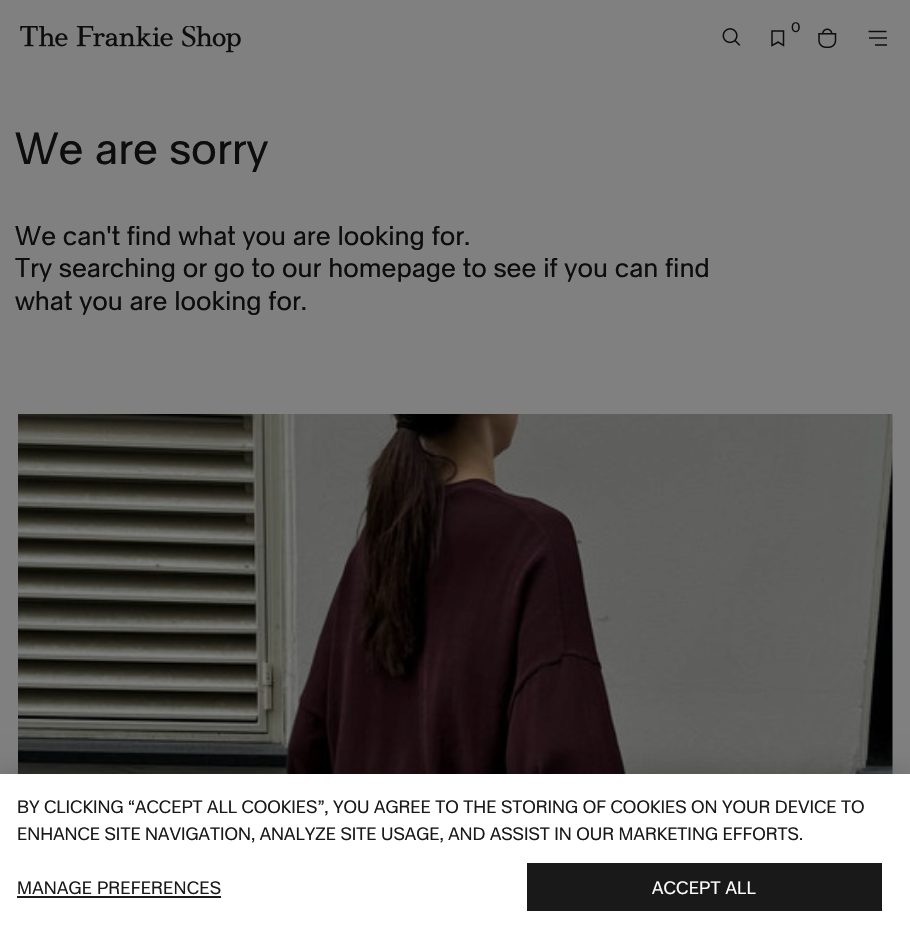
static SkFont makeFont(const char* family, int weight, float size, bool italic = false) {
  SkFontStyle style(weight, SkFontStyle::kNormal_Width,
    italic ? SkFontStyle::kItalic_Slant : SkFontStyle::kUpright_Slant);
  SkFont result(fontMgr->matchFamilyStyle(family, style), size);
  result.setSubpixel(true);
  return result;
}

static void text(SkCanvas* c, const char* s, float x, float y, const SkFont& font, SkColor color) {
  SkPaint ink(SkColor4f::FromColor(color));
  ink.setAntiAlias(true);
  c->drawString(s, x, y, font, ink);
}

static void spacedText(SkCanvas* c, const char* s, float x, float y, const SkFont& font, const SkPaint& ink, float letter, float word) {
  std::vector<SkGlyphID> glyphs(font.countText(s, strlen(s), SkTextEncoding::kUTF8));
  std::vector<float> xs(glyphs.size());
  font.textToGlyphs(s, strlen(s), SkTextEncoding::kUTF8, glyphs);
  font.getXPos(glyphs, xs, x);
  float extra = 0;
  for (size_t i = 0; i < glyphs.size(); i++) {
    xs[i] += extra;
    extra += letter + word * (glyphs[i] == font.unicharToGlyph(' '));
  }
  c->drawTextBlob(SkTextBlob::MakeFromPosHGlyphs(glyphs, xs, y, font), 0, 0, ink);
}

static void box(SkCanvas* c, float l, float t, float r, float b, SkColor color) {
  SkPaint ink(SkColor4f::FromColor(color));
  ink.setAntiAlias(true);
  c->drawRect(SkRect::MakeLTRB(l, t, r, b), ink);
}

static void picture(SkCanvas* c, const char* path, float l, float t, float r, float b) {
  auto image = SkImages::DeferredFromEncodedData(SkData::MakeFromFileName(path));
  c->drawImageRect(image, SkRect::MakeLTRB(l, t, r, b), SkSamplingOptions());
}

void draw(SkCanvas* c) {
  SkPaint paint;
  paint.setAntiAlias(true);
  c->clear(0xff808080);
  picture(c, "img_01.png", 20, 26, 241, 53);
  picture(c, "img_02.png", 722, 28, 741, 46);
  SkFont face1 = makeFont("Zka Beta", 400, 14);
  text(c, "0", 791, 32, face1, 0xff0d0d0d);
  paint.setStyle(SkPaint::kStroke_Style);
  paint.setStrokeWidth(1.5f);
  paint.setColor(0xff0d0d0d);
  c->drawPath(SkPathBuilder().moveTo(777.5f, 42.5f).lineTo(772, 45.5f).lineTo(772, 31).lineTo(783.5f, 31).lineTo(783.5f, 45.5f).lineTo(778, 42).close().detach(), paint);
  picture(c, "img_03.png", 818, 28, 837, 48);
  c->drawPath(SkPathBuilder().moveTo(868.5f, 31.5f).lineTo(886.5f, 31.5f).detach(), paint);
  box(c, 869, 37, 887, 39, 0xff2a2a2a);
  box(c, 875, 44, 887, 46, 0xff2a2a2a);
  SkFont face2 = makeFont("Zka Beta", 400, 45);
  text(c, "We are sorry", 15, 164, face2, 0xff0d0d0d);
  SkFont face3 = makeFont("Zka Beta", 400, 27);
  text(c, "We can't find what you are looking for.", 15, 245, face3, 0xff0d0d0d);
  text(c, "Try searching or go to our homepage to see if you can find", 15, 277, face3, 0xff0d0d0d);
  text(c, "what you are looking for.", 15, 310, face3, 0xff0d0d0d);
  picture(c, "img_04.png", 18, 414, 893, 774);
  paint.setStyle(SkPaint::kFill_Style);
  paint.setColor(0x33000000);
  paint.setMaskFilter(SkMaskFilter::MakeBlur(kNormal_SkBlurStyle, 13.5f));
  c->drawRect(SkRect::MakeLTRB(0, 774, 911, 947), paint);
  paint.setMaskFilter(nullptr);
  box(c, 0, 774, 910, 946, 0xffffffff);
  SkFont face4 = makeFont("Zka Beta", 400, 18);
  text(c, "BY CLICKING “ACCEPT ALL COOKIES”, YOU AGREE TO THE STORING OF COOKIES ON YOUR DEVICE TO", 17, 813, face4, 0xff1a1a1a);
  text(c, "ENHANCE SITE NAVIGATION, ANALYZE SITE USAGE, AND ASSIST IN OUR MARKETING EFFORTS.", 17, 840, face4, 0xff1a1a1a);
  paint.setColor(0xff1a1a1a);
  spacedText(c, "MANAGE PREFERENCES", 17, 894, face4, paint, 0.2f, 0);
  box(c, 17, 896, 221, 898, 0xff1a1a1a);
  box(c, 527, 863, 882, 911, 0xff191919);
  paint.setColor(0xffffffff);
  spacedText(c, "ACCEPT ALL", 652, 894, face4, paint, 0.2f, 0);
}
